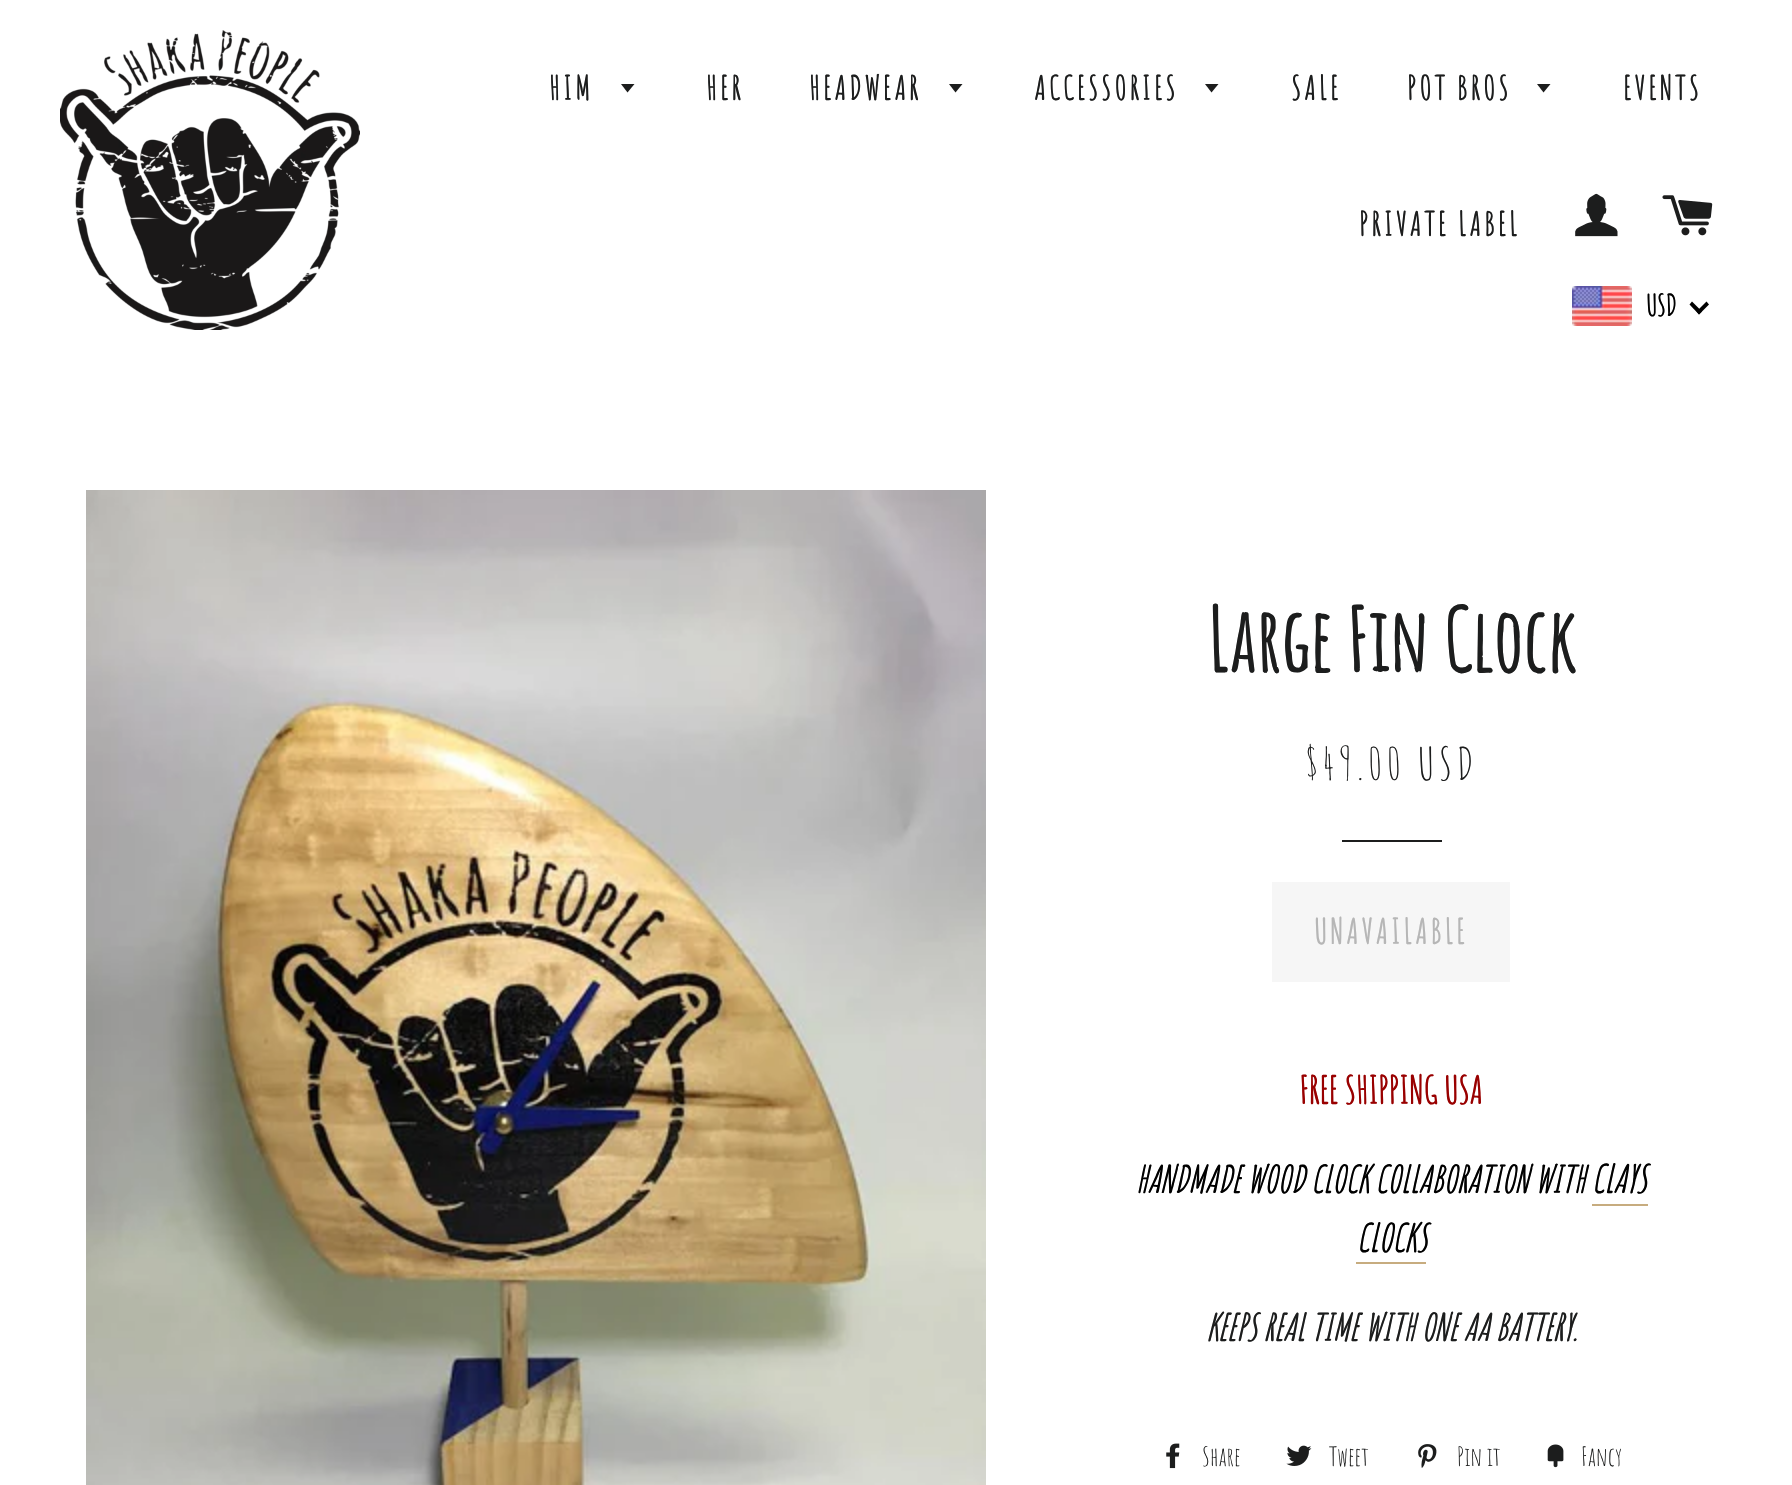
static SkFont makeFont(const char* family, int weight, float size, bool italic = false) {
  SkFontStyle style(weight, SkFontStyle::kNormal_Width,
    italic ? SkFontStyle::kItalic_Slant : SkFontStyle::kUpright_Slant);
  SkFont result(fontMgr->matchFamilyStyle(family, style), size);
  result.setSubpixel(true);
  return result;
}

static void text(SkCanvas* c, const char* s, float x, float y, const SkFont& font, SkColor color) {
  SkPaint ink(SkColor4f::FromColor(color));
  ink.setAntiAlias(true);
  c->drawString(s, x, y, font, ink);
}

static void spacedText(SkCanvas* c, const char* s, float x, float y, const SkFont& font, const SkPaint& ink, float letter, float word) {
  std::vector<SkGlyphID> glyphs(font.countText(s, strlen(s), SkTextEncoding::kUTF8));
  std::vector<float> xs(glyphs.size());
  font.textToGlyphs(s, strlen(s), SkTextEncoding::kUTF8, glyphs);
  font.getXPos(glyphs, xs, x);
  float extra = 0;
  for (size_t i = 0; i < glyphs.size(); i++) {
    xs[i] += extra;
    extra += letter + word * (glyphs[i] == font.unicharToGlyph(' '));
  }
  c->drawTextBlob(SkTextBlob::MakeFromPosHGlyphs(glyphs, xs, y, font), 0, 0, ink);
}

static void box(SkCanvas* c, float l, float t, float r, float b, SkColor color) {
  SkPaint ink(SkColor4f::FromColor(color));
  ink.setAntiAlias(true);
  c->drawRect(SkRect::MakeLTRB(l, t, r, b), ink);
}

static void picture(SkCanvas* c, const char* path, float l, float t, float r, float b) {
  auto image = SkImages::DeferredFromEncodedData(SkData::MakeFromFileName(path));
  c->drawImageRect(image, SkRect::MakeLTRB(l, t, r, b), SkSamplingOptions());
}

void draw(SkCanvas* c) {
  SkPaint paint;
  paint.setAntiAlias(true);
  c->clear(0xffffffff);
  picture(c, "img_01.png", 60, 30, 360, 330);
  SkFont face1 = makeFont("Amatic SC", 700, 32.5f);
  paint.setColor(0xff1c1d1d);
  spacedText(c, "HIM", 549, 100, face1, paint, 3.25f, 0);
  c->drawPath(SkPathBuilder().moveTo(621, 84).lineTo(627.5f, 92.5f).lineTo(634.5f, 84).close().detach(), paint);
  spacedText(c, "HER", 706, 100, face1, paint, 3.25f, 0);
  spacedText(c, "HEADWEAR", 809, 100, face1, paint, 3.25f, 0);
  c->drawPath(SkPathBuilder().moveTo(949, 84).lineTo(955.5f, 92.5f).lineTo(962.5f, 84).close().detach(), paint);
  spacedText(c, "ACCESSORIES", 1034, 100, face1, paint, 3.25f, 0);
  c->drawPath(SkPathBuilder().moveTo(1205, 84).lineTo(1211.5f, 92.5f).lineTo(1218.5f, 84).close().detach(), paint);
  spacedText(c, "SALE", 1291, 100, face1, paint, 3.25f, 0);
  spacedText(c, "POT BROS", 1407, 100, face1, paint, 3.25f, 0);
  c->drawPath(SkPathBuilder().moveTo(1537, 84).lineTo(1543.5f, 92.5f).lineTo(1550.5f, 84).close().detach(), paint);
  spacedText(c, "EVENTS", 1623, 100, face1, paint, 3.25f, 0);
  spacedText(c, "PRIVATE LABEL", 1359, 236, face1, paint, 3.25f, 0);
  picture(c, "img_02.png", 1575, 193, 1618, 237);
  picture(c, "img_03.png", 1662, 195, 1713, 236);
  picture(c, "img_04.png", 1572, 286, 1632, 326);
  SkFont face2 = makeFont("Amatic SC", 700, 29);
  text(c, "USD", 1646, 316, face2, 0xff000000);
  paint.setColor(0xff000000);
  c->drawPath(SkPathBuilder().moveTo(1706.5f, 301.5f).lineTo(1709, 304.5f).lineTo(1699, 314.5f).lineTo(1696.5f, 311.5f).close().detach(), paint);
  c->drawPath(SkPathBuilder().moveTo(1692, 301.5f).lineTo(1702, 311.5f).lineTo(1699, 314.5f).lineTo(1689.5f, 304.5f).close().detach(), paint);
  picture(c, "img_05.png", 86, 490, 986, 1485);
  SkFont face3 = makeFont("Amatic SC", 700, 86);
  text(c, "Large Fin Clock", 1207, 672, face3, 0xff1c1d1d);
  SkFont face4 = makeFont("Amatic SC", 400, 44.5f);
  paint.setColor(0xff1c1d1d);
  spacedText(c, "$49.00 USD", 1306, 780, face4, paint, 4.5f, 0);
  box(c, 1342, 840, 1442, 842, 0xff1c1d1d);
  box(c, 1272, 882, 1510, 982, 0xfff6f6f6);
  SkFont face5 = makeFont("Amatic SC", 700, 34);
  paint.setColor(0xffb6b6b6);
  spacedText(c, "UNAVAILABLE", 1314, 944, face5, paint, 3.25f, 0);
  SkFont face6 = makeFont("Amatic SC", 700, 37.5f);
  text(c, "FREE SHIPPING USA", 1299, 1104, face6, 0xff990000);
  SkFont face7 = makeFont("Amatic SC", 700, 36.5f, true);
  text(c, "HANDMADE WOOD CLOCK COLLABORATION WITH", 1135, 1193, face7, 0xff000000);
  SkFont face8 = makeFont("Amatic SC", 700, 37.5f, true);
  text(c, "CLAYS", 1591, 1193, face8, 0xff000000);
  box(c, 1592, 1204, 1648, 1206, 0xffc7ac7f);
  text(c, "CLOCKS", 1356, 1252, face8, 0xff000000);
  box(c, 1356, 1262, 1426, 1264, 0xffc7ac7f);
  text(c, "KEEPS REAL TIME WITH ONE AA BATTERY.", 1206, 1341, face7, 0xff1c1d1d);
  picture(c, "img_06.png", 1166, 1443, 1180, 1469);
  SkFont face9 = makeFont("Amatic SC", 400, 26);
  text(c, "Share", 1202, 1466, face9, 0xff1c1d1d);
  picture(c, "img_07.png", 1286, 1445, 1312, 1466);
  text(c, "Tweet", 1329, 1466, face9, 0xff1c1d1d);
  picture(c, "img_08.png", 1418, 1444, 1437, 1468);
  text(c, "Pin it", 1457, 1466, face9, 0xff1c1d1d);
  picture(c, "img_09.png", 1547, 1444, 1564, 1468);
  text(c, "Fancy", 1581, 1466, face9, 0xff1c1d1d);
}
